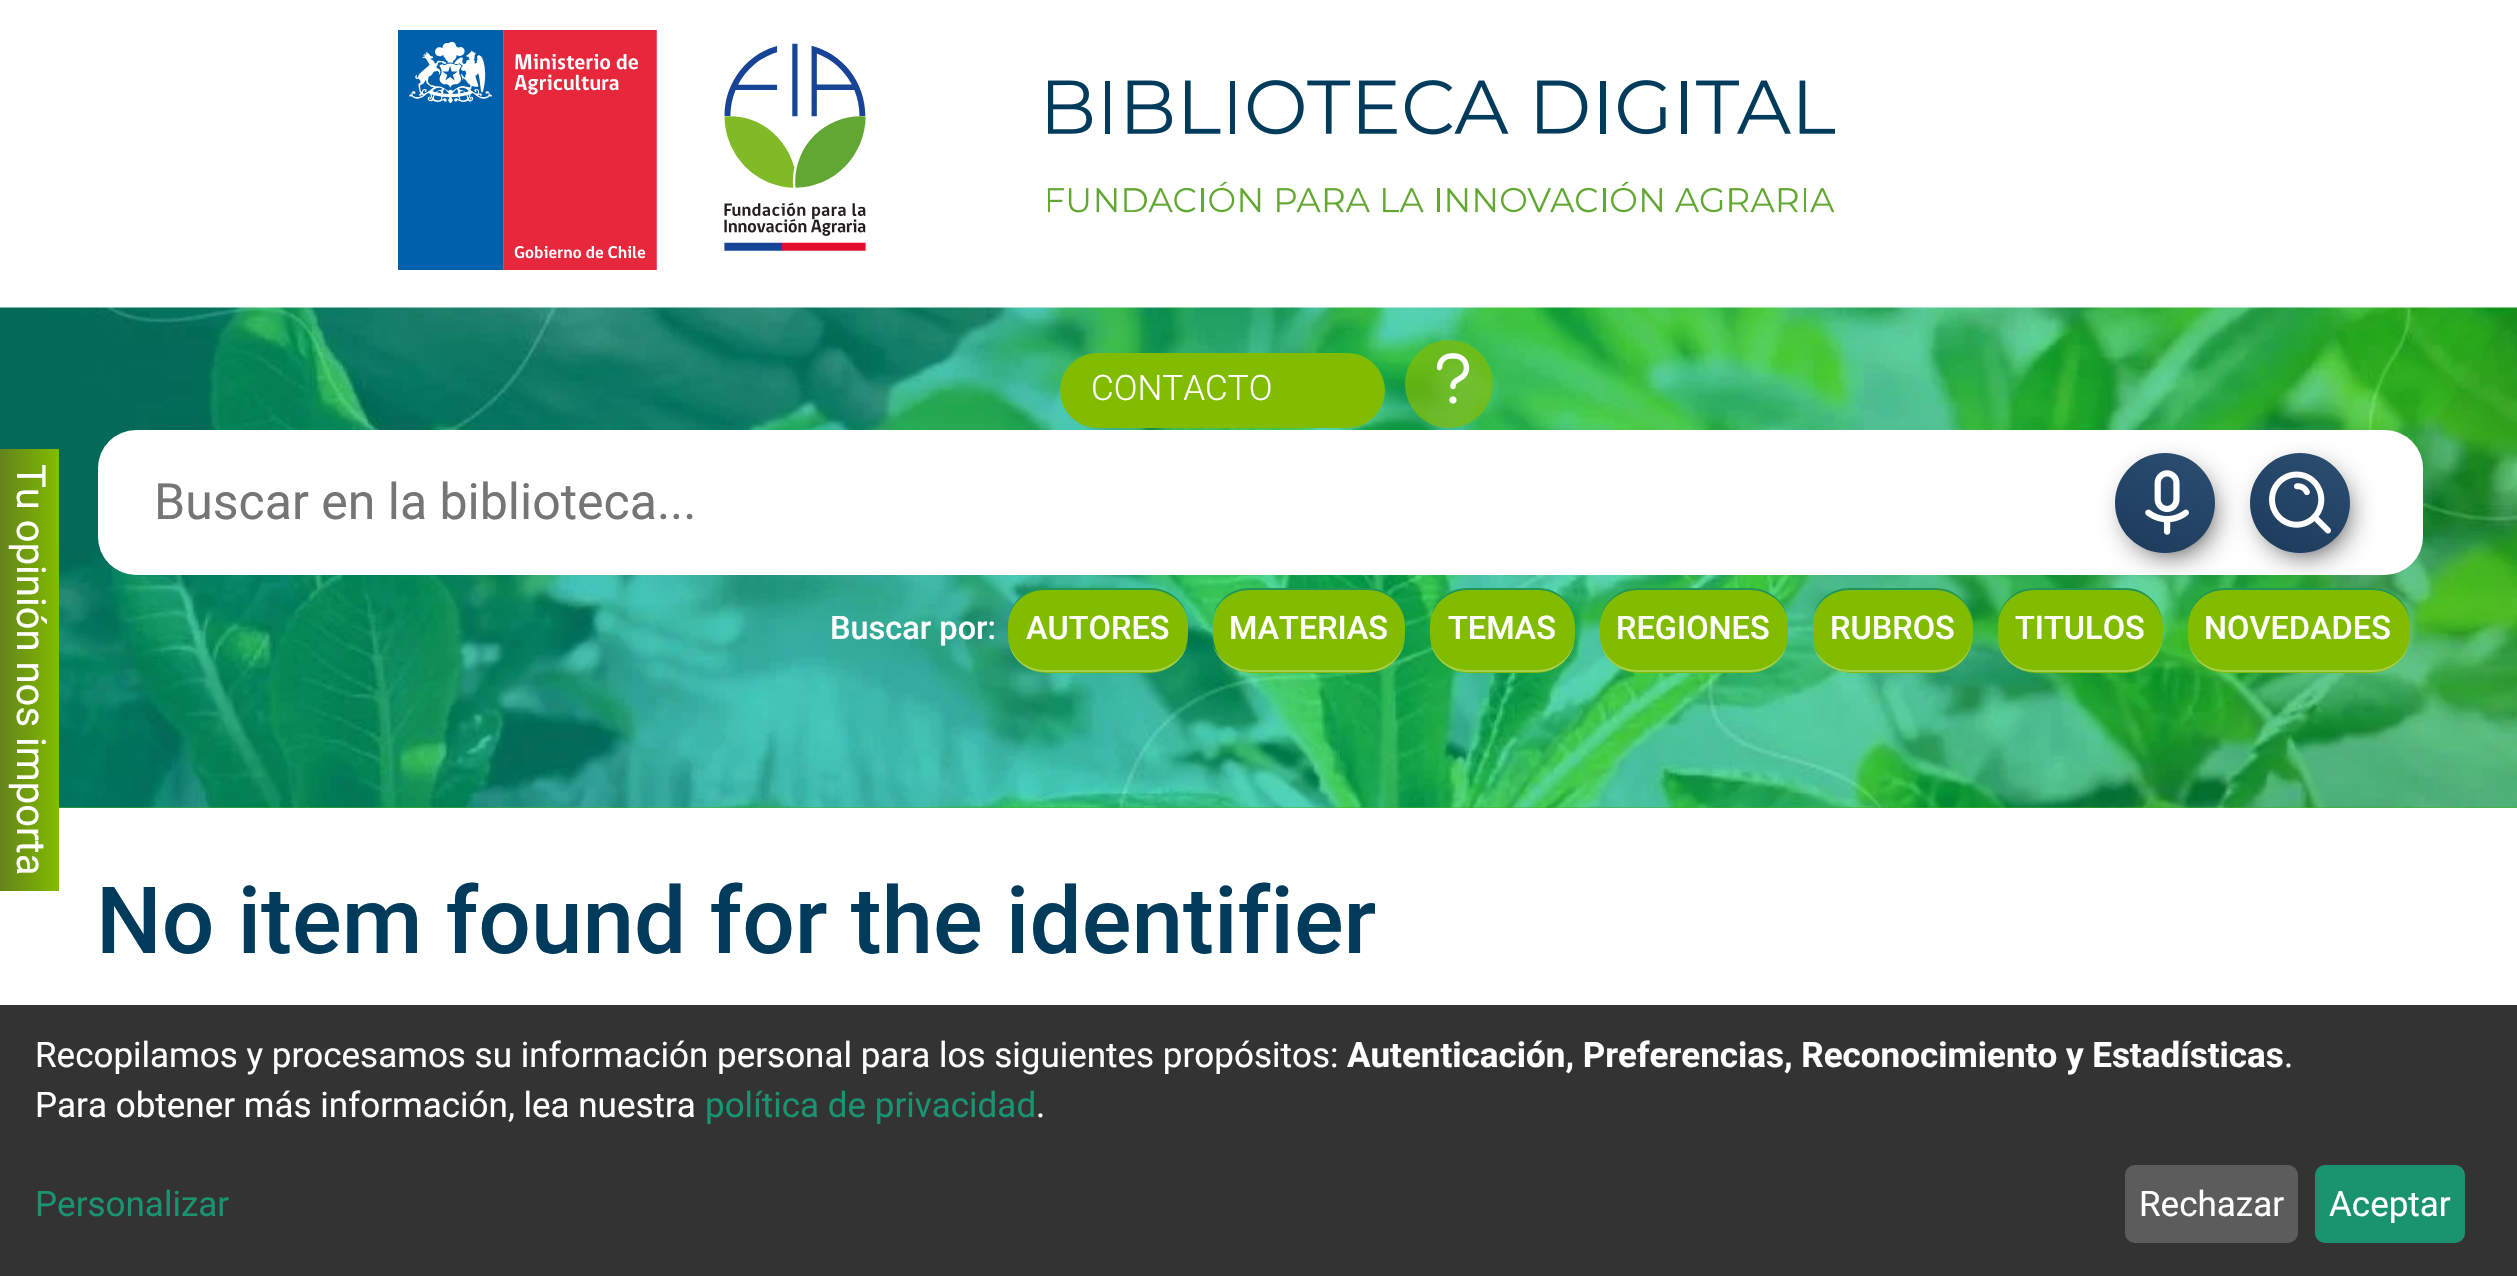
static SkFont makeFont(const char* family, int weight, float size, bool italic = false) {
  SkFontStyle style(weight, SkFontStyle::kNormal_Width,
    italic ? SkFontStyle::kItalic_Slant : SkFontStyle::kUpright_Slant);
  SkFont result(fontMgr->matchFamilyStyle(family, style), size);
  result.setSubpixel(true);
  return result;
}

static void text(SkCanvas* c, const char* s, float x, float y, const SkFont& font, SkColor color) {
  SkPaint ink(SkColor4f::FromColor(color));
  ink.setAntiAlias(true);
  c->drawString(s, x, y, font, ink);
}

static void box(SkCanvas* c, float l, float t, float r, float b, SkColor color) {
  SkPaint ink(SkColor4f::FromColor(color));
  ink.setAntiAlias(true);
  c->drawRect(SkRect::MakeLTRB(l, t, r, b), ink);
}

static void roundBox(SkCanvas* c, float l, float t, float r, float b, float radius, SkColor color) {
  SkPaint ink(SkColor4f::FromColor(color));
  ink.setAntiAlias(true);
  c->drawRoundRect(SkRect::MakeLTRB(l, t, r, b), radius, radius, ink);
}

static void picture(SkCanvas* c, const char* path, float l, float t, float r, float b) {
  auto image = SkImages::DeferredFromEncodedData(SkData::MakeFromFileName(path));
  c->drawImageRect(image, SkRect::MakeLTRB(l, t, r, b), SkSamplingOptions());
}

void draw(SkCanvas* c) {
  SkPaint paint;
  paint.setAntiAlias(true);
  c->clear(0xffffffff);
  box(c, 59, 807, 2517, 808, 0xff47b417);
  picture(c, "img_04.png", 0, 307, 2517, 808);
  {
    const SkColor colors[] = {0xff82bc00, 0xff62811c};
    const float stops[] = {0, 1};
    const SkPoint ends[] = {{59, 670}, {-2.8f, 670}};
    paint.setShader(SkGradientShader::MakeLinear(ends, colors, stops, 2, SkTileMode::kClamp));
    paint.setAlpha(255);
  }
  c->drawRect(SkRect::MakeLTRB(0, 449, 59, 891), paint);
  SkFont face1 = makeFont("Roboto", 400, 40);
  c->save();
  c->rotate(90, 17, 464);
  text(c, "Tu opinión nos importa", 17, 464, face1, 0xffffffff);
  c->restore();
  picture(c, "img_01.png", 398, 30, 866, 270);
  picture(c, "img_02.png", 1048, 80, 1835, 213);
  roundBox(c, 1060, 353, 1385, 428, 37.5f, 0xff82bc00);
  SkFont face2 = makeFont("Roboto", 300, 35);
  text(c, "CONTACTO", 1091, 400, face2, 0xffffffff);
  paint.setShader(nullptr);
  paint.setColor(0xb382bc00);
  c->drawCircle(1449, 384, 44, paint);
  picture(c, "img_03.png", 1436, 353, 1470, 404);
  roundBox(c, 98, 430, 2423, 575, 38, 0xffffffff);
  SkFont face3 = makeFont("Roboto", 400, 50);
  text(c, "Buscar en la biblioteca...", 154, 519, face3, 0xff757575);
  roundBox(c, 1998, 588, 2163, 673, 38, 0xff82bc00);
  paint.setColor(0xff1e9559);
  c->drawPath(SkPathBuilder().moveTo(2035, 588).cubicTo(2014, 588, 1998, 604, 1998, 625).cubicTo(1998, 606, 2014, 590, 2035, 590).lineTo(2125, 590).cubicTo(2146, 590, 2162, 606, 2162, 625).cubicTo(2162, 604, 2146, 588, 2125, 588).close().detach(), paint);
  roundBox(c, 2188, 588, 2410, 673, 38, 0xff82bc00);
  c->drawPath(SkPathBuilder().moveTo(2225, 588).cubicTo(2204, 588, 2188, 604, 2188, 625).cubicTo(2188, 606, 2204, 590, 2225, 590).lineTo(2372, 590).cubicTo(2393, 590, 2410, 606, 2410, 625).cubicTo(2410, 604, 2393, 588, 2372, 588).close().detach(), paint);
  paint.setColor(0xff000000);
  paint.setMaskFilter(SkMaskFilter::MakeBlur(kNormal_SkBlurStyle, 16));
  c->drawRoundRect(SkRect::MakeLTRB(2133, 475, 2208, 550), 37.5f, 37.5f, paint);
  paint.setMaskFilter(nullptr);
  {
    const SkColor colors[] = {0xff2b4e72, 0xff1d3b5b};
    const float stops[] = {0, 1};
    const SkPoint ends[] = {{2194, 442}, {2136, 563}};
    paint.setShader(SkGradientShader::MakeLinear(ends, colors, stops, 2, SkTileMode::kClamp));
    paint.setAlpha(255);
  }
  c->drawCircle(2165, 503, 50, paint);
  picture(c, "img_05.png", 2145, 470, 2189, 535);
  paint.setShader(nullptr);
  paint.setColor(0xff000000);
  paint.setMaskFilter(SkMaskFilter::MakeBlur(kNormal_SkBlurStyle, 16));
  c->drawRoundRect(SkRect::MakeLTRB(2268, 475, 2343, 550), 37.5f, 37.5f, paint);
  paint.setMaskFilter(nullptr);
  {
    const SkColor colors[] = {0xff2b4e72, 0xff1d3b5b};
    const float stops[] = {0, 1};
    const SkPoint ends[] = {{2329, 442}, {2271, 563}};
    paint.setShader(SkGradientShader::MakeLinear(ends, colors, stops, 2, SkTileMode::kClamp));
    paint.setAlpha(255);
  }
  c->drawCircle(2300, 503, 50, paint);
  picture(c, "img_06.png", 2269, 471, 2331, 534);
  SkFont face4 = makeFont("Roboto", 500, 32.5f);
  text(c, "Buscar por:", 830, 639, face4, 0xffffffff);
  roundBox(c, 1008, 588, 1188, 673, 38, 0xff82bc00);
  paint.setShader(nullptr);
  paint.setColor(0xff1e9559);
  c->drawPath(SkPathBuilder().moveTo(1045, 588).lineTo(1150, 588).cubicTo(1169, 588, 1185, 601, 1188, 619).cubicTo(1185, 603, 1169, 590, 1150, 590).lineTo(1045, 590).cubicTo(1024, 590, 1008, 606, 1008, 625).cubicTo(1008, 604, 1024, 588, 1045, 588).close().detach(), paint);
  paint.setColor(0xffa7d04c);
  c->drawPath(SkPathBuilder().moveTo(1188, 641).cubicTo(1185, 659, 1169, 672, 1150, 672).lineTo(1045, 672).cubicTo(1024, 672, 1008, 656, 1008, 635).cubicTo(1008, 654, 1024, 670, 1045, 670).lineTo(1150, 670).cubicTo(1169, 670, 1185, 657, 1188, 641).close().detach(), paint);
  text(c, "AUTORES", 1026, 639, face4, 0xffffffff);
  roundBox(c, 1213, 588, 1405, 673, 38, 0xff82bc00);
  paint.setColor(0xff1e9559);
  c->drawPath(SkPathBuilder().moveTo(1250, 588).lineTo(1368, 588).cubicTo(1388, 588, 1405, 604, 1405, 625).cubicTo(1405, 606, 1388, 590, 1368, 590).lineTo(1250, 590).cubicTo(1231, 590, 1215, 603, 1212, 619).cubicTo(1215, 601, 1231, 588, 1250, 588).close().detach(), paint);
  paint.setColor(0xffa7d04c);
  c->drawPath(SkPathBuilder().moveTo(1368, 672).cubicTo(1388, 672, 1405, 656, 1405, 635).cubicTo(1405, 654, 1388, 670, 1368, 670).lineTo(1250, 670).cubicTo(1231, 670, 1215, 657, 1212, 641).cubicTo(1215, 659, 1231, 672, 1250, 672).close().detach(), paint);
  text(c, "MATERIAS", 1229, 639, face4, 0xffffffff);
  roundBox(c, 1430, 588, 1575, 673, 38, 0xff82bc00);
  paint.setColor(0xff1e9559);
  c->drawPath(SkPathBuilder().moveTo(1468, 588).cubicTo(1447, 588, 1430, 604, 1430, 625).cubicTo(1430, 606, 1447, 590, 1468, 590).lineTo(1538, 590).cubicTo(1558, 590, 1575, 606, 1575, 625).cubicTo(1575, 604, 1558, 588, 1538, 588).close().detach(), paint);
  paint.setColor(0xffa7d04c);
  c->drawPath(SkPathBuilder().moveTo(1538, 672).cubicTo(1558, 672, 1575, 656, 1575, 635).cubicTo(1575, 654, 1558, 670, 1538, 670).lineTo(1468, 670).cubicTo(1447, 670, 1430, 654, 1430, 635).cubicTo(1430, 656, 1447, 672, 1468, 672).close().detach(), paint);
  text(c, "TEMAS", 1448, 639, face4, 0xffffffff);
  roundBox(c, 1600, 588, 1788, 673, 38, 0xff82bc00);
  paint.setColor(0xff1e9559);
  c->drawPath(SkPathBuilder().moveTo(1638, 588).lineTo(1750, 588).cubicTo(1769, 588, 1785, 601, 1788, 619).cubicTo(1785, 603, 1769, 590, 1750, 590).lineTo(1638, 590).cubicTo(1617, 590, 1600, 606, 1600, 625).cubicTo(1600, 604, 1617, 588, 1638, 588).close().detach(), paint);
  paint.setColor(0xffa7d04c);
  c->drawPath(SkPathBuilder().moveTo(1788, 641).cubicTo(1785, 659, 1769, 672, 1750, 672).lineTo(1638, 672).cubicTo(1617, 672, 1600, 656, 1600, 635).cubicTo(1600, 654, 1617, 670, 1638, 670).lineTo(1750, 670).cubicTo(1769, 670, 1785, 657, 1788, 641).close().detach(), paint);
  text(c, "REGIONES", 1616, 639, face4, 0xffffffff);
  roundBox(c, 1813, 588, 1973, 673, 38, 0xff82bc00);
  paint.setColor(0xff1e9559);
  c->drawPath(SkPathBuilder().moveTo(1850, 588).lineTo(1935, 588).cubicTo(1956, 588, 1972, 604, 1972, 625).cubicTo(1972, 606, 1956, 590, 1935, 590).lineTo(1850, 590).cubicTo(1831, 590, 1815, 603, 1812, 619).cubicTo(1815, 601, 1831, 588, 1850, 588).close().detach(), paint);
  paint.setColor(0xffa7d04c);
  c->drawPath(SkPathBuilder().moveTo(1935, 672).cubicTo(1956, 672, 1972, 656, 1972, 635).cubicTo(1972, 654, 1956, 670, 1935, 670).lineTo(1850, 670).cubicTo(1831, 670, 1815, 657, 1812, 641).cubicTo(1815, 659, 1831, 672, 1850, 672).close().detach(), paint);
  text(c, "RUBROS", 1830, 639, face4, 0xffffffff);
  c->drawPath(SkPathBuilder().moveTo(2125, 672).cubicTo(2146, 672, 2162, 656, 2162, 635).cubicTo(2162, 654, 2146, 670, 2125, 670).lineTo(2035, 670).cubicTo(2014, 670, 1998, 654, 1998, 635).cubicTo(1998, 656, 2014, 672, 2035, 672).close().detach(), paint);
  text(c, "TITULOS", 2015, 639, face4, 0xffffffff);
  c->drawPath(SkPathBuilder().moveTo(2372, 672).cubicTo(2393, 672, 2410, 656, 2410, 635).cubicTo(2410, 654, 2393, 670, 2372, 670).lineTo(2225, 670).cubicTo(2204, 670, 2188, 654, 2188, 635).cubicTo(2188, 656, 2204, 672, 2225, 672).close().detach(), paint);
  text(c, "NOVEDADES", 2204, 639, face4, 0xffffffff);
  SkFont face5 = makeFont("Roboto", 500, 92.75f);
  text(c, "No item found for the identifier", 96, 953, face5, 0xff003b5c);
  box(c, 0, 1005, 2517, 1276, 0xff333333);
  SkFont face6 = makeFont("Roboto", 400, 35);
  text(c, "Recopilamos y procesamos su información personal para los siguientes propósitos:", 35, 1067, face6, 0xffffffff);
  SkFont face7 = makeFont("Roboto", 700, 35);
  text(c, "Autenticación, Preferencias, Reconocimiento y Estadísticas", 1347, 1067, face7, 0xffffffff);
  text(c, ".", 2284, 1067, face6, 0xffffffff);
  text(c, "Para obtener más información, lea nuestra", 35, 1117, face6, 0xffffffff);
  text(c, "política de privacidad", 705, 1117, face6, 0xff1a936f);
  text(c, ".", 1036, 1117, face6, 0xffffffff);
  text(c, "Personalizar", 35, 1216, face6, 0xff1a936f);
  roundBox(c, 2125, 1165, 2298, 1243, 10, 0xff5c5c5c);
  text(c, "Rechazar", 2139, 1216, face6, 0xffffffff);
  roundBox(c, 2315, 1165, 2465, 1243, 10, 0xff1a936f);
  text(c, "Aceptar", 2329, 1216, face6, 0xffffffff);
}
